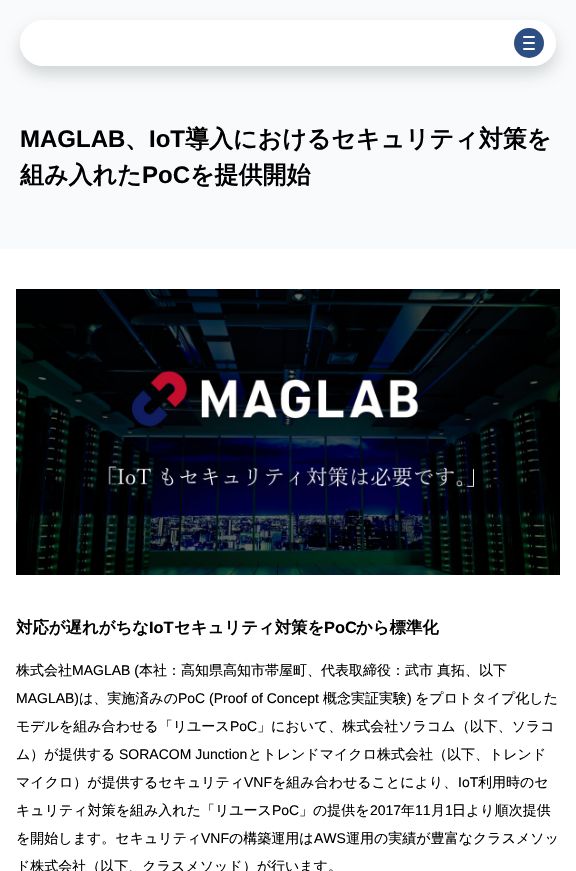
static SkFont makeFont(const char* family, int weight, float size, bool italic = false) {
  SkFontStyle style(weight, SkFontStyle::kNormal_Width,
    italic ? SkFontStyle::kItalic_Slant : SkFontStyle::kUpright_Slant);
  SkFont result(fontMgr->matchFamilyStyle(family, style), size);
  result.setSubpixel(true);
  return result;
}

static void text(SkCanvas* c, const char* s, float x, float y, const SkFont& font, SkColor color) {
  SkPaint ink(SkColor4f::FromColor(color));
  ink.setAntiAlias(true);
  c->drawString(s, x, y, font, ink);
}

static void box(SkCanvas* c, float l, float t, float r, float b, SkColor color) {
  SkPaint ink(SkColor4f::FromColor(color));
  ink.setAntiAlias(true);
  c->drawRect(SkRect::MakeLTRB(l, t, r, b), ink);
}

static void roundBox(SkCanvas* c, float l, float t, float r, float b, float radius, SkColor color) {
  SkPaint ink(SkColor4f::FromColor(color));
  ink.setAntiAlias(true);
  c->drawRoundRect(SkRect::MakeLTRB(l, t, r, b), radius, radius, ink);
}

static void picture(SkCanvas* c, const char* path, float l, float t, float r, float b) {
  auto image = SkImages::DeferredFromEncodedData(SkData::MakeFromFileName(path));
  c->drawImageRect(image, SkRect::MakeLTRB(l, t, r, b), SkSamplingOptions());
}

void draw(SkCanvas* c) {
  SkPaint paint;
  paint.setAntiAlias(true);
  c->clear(0xffffffff);
  box(c, 0, 0, 576, 249, 0xfff8fafc);
  c->save();
  c->clipPath(SkPathBuilder(SkPathFillType::kEvenOdd).moveTo(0, 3).lineTo(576, 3).lineTo(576, 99).lineTo(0, 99).close().moveTo(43, 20).lineTo(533, 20).cubicTo(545.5f, 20, 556, 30.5f, 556, 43).cubicTo(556, 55.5f, 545.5f, 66, 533, 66).lineTo(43, 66).cubicTo(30.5f, 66, 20, 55.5f, 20, 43).cubicTo(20, 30.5f, 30.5f, 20, 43, 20).close().detach(), true);
  paint.setColor(0x425d6463);
  paint.setMaskFilter(SkMaskFilter::MakeBlur(kNormal_SkBlurStyle, 8));
  c->drawRoundRect(SkRect::MakeLTRB(20, 28, 556, 74), 23, 23, paint);
  paint.setMaskFilter(nullptr);
  c->restore();
  roundBox(c, 20, 20, 556, 66, 23, 0xe6ffffff);
  paint.setColor(0xff2c4e83);
  c->drawCircle(529, 43, 15, paint);
  roundBox(c, 523, 36, 535, 38, 1, 0xffffffff);
  roundBox(c, 523, 42, 535, 44, 1, 0xffffffff);
  roundBox(c, 523, 48, 535, 50, 1, 0xffffffff);
  SkFont face1 = makeFont("Liberation Sans", 700, 24);
  text(c, "MAGLAB", 20, 147, face1, 0xff000000);
  SkFont face2 = makeFont("WenQuanYi Zen Hei", 700, 24);
  text(c, "、", 125, 147, face2, 0xff000000);
  text(c, "IoT", 149, 147, face1, 0xff000000);
  text(c, "導入におけるセキュリティ対策を", 185, 147, face2, 0xff000000);
  text(c, "組み入れた", 20, 183, face2, 0xff000000);
  text(c, "PoC", 142, 183, face1, 0xff000000);
  text(c, "を提供開始", 190, 183, face2, 0xff000000);
  picture(c, "img_01.png", 16, 289, 560, 575);
  SkFont face3 = makeFont("WenQuanYi Zen Hei", 700, 16.4f);
  text(c, "対応が遅れがちな", 16, 633, face3, 0xff000000);
  SkFont face4 = makeFont("Liberation Sans", 700, 16.4f);
  text(c, "IoT", 149, 633, face4, 0xff000000);
  text(c, "セキュリティ対策を", 174, 633, face3, 0xff000000);
  text(c, "PoC", 324, 633, face4, 0xff000000);
  text(c, "から標準化", 356, 633, face3, 0xff000000);
  SkFont face5 = makeFont("WenQuanYi Zen Hei", 500, 14);
  text(c, "株式会社", 16, 675, face5, 0xff000000);
  SkFont face6 = makeFont("Liberation Sans", 400, 14);
  text(c, "MAGLAB (", 72, 675, face6, 0xff000000);
  text(c, "本社：高知県高知市帯屋町、代表取締役：武市", 139, 675, face5, 0xff000000);
  text(c, "真拓、以下", 437, 675, face5, 0xff000000);
  text(c, "MAGLAB)", 16, 703, face6, 0xff000000);
  text(c, "は、実施済みの", 79, 703, face5, 0xff000000);
  text(c, "PoC (Proof of Concept", 178, 703, face6, 0xff000000);
  text(c, "概念実証実験", 323, 703, face5, 0xff000000);
  text(c, ")", 407, 703, face6, 0xff000000);
  text(c, "をプロトタイプ化した", 415, 703, face5, 0xff000000);
  text(c, "モデルを組み合わせる「リユース", 16, 731, face5, 0xff000000);
  text(c, "PoC", 230, 731, face6, 0xff000000);
  text(c, "」において、株式会社ソラコム（以下、ソラコ", 257, 731, face5, 0xff000000);
  text(c, "ム）が提供する", 16, 759, face5, 0xff000000);
  text(c, "SORACOM Junction", 119, 759, face6, 0xff000000);
  text(c, "とトレンドマイクロ株式会社（以下、トレンド", 248, 759, face5, 0xff000000);
  text(c, "マイクロ）が提供するセキュリティ", 16, 787, face5, 0xff000000);
  text(c, "VNF", 244, 787, face6, 0xff000000);
  text(c, "を組み合わせることにより、", 272, 787, face5, 0xff000000);
  text(c, "IoT", 458, 787, face6, 0xff000000);
  text(c, "利用時のセ", 478, 787, face5, 0xff000000);
  text(c, "キュリティ対策を組み入れた「リユース", 16, 815, face5, 0xff000000);
  text(c, "PoC", 272, 815, face6, 0xff000000);
  text(c, "」の提供を", 299, 815, face5, 0xff000000);
  text(c, "2017", 370, 815, face6, 0xff000000);
  text(c, "年", 401, 815, face5, 0xff000000);
  text(c, "11", 415, 815, face6, 0xff000000);
  text(c, "月", 431, 815, face5, 0xff000000);
  text(c, "1", 445, 815, face6, 0xff000000);
  text(c, "日より順次提供", 452, 815, face5, 0xff000000);
  text(c, "を開始します。セキュリティ", 16, 843, face5, 0xff000000);
  text(c, "VNF", 201, 843, face6, 0xff000000);
  text(c, "の構築運用は", 229, 843, face5, 0xff000000);
  text(c, "AWS", 314, 843, face6, 0xff000000);
  text(c, "運用の実績が豊富なクラスメソッ", 346, 843, face5, 0xff000000);
  text(c, "ド株式会社（以下、クラスメソッド）が行います。", 16, 871, face5, 0xff000000);
}
